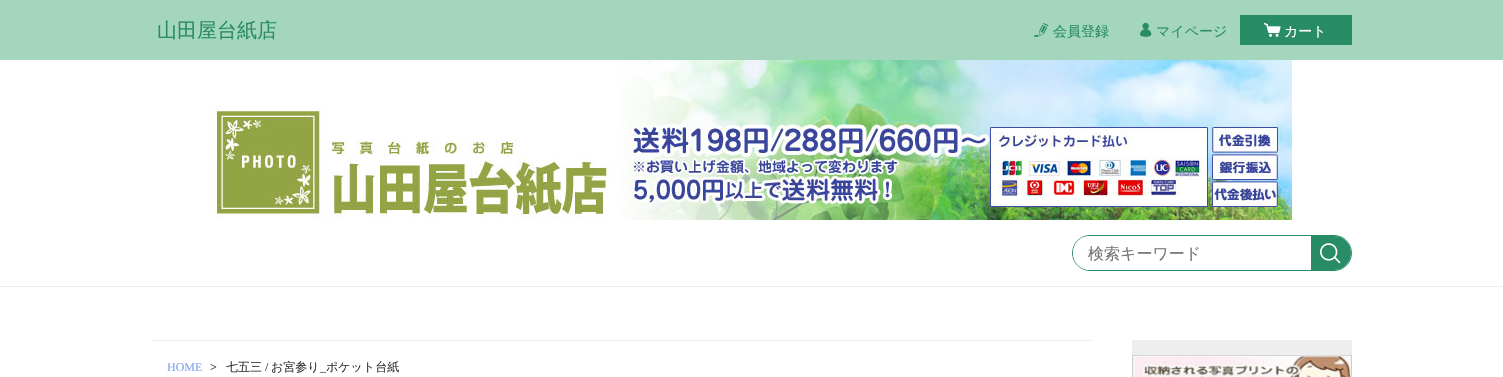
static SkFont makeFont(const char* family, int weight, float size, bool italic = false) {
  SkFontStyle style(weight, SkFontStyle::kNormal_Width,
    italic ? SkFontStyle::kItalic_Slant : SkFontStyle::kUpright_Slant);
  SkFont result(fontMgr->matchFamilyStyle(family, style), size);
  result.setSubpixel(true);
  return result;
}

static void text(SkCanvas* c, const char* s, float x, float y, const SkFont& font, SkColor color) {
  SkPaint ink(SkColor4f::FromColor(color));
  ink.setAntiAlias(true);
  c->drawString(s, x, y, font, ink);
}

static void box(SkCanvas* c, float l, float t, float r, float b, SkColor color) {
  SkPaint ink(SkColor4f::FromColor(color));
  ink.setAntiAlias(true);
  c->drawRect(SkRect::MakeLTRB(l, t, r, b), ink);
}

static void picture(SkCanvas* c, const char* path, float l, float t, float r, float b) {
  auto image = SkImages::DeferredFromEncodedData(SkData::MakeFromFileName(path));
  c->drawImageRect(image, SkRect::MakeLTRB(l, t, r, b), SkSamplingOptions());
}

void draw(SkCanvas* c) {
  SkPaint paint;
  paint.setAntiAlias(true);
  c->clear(0xffffffff);
  box(c, 0, 0, 1503, 60, 0xffa4d5bd);
  SkFont face1 = makeFont("WenQuanYi Zen Hei", 500, 20);
  text(c, "山田屋台紙店", 157, 37, face1, 0xff288c66);
  picture(c, "img_01.png", 1034, 23, 1049, 37);
  SkFont face2 = makeFont("WenQuanYi Zen Hei", 500, 14);
  text(c, "会員登録", 1053, 36, face2, 0xff288c66);
  picture(c, "img_02.png", 1140, 22, 1152, 37);
  text(c, "マイページ", 1156, 36, face2, 0xff288c66);
  box(c, 1240, 15, 1352, 45, 0xff288c66);
  picture(c, "img_03.png", 1264, 22, 1281, 37);
  text(c, "カート", 1284, 36, face2, 0xffffffff);
  picture(c, "img_04.png", 212, 60, 1292, 220);
  box(c, 0, 286, 1503, 287, 0xffeeeeee);
  paint.setStyle(SkPaint::kStroke_Style);
  paint.setStrokeWidth(1);
  paint.setColor(0xff288c66);
  c->drawRoundRect(SkRect::MakeLTRB(1072.5f, 235.5f, 1351.5f, 270.5f), 17.5f, 17.5f, paint);
  paint.setStyle(SkPaint::kFill_Style);
  paint.setColor(0xffffffff);
  c->drawPath(SkPathBuilder().moveTo(1090, 236).lineTo(1311, 236).lineTo(1311, 270).lineTo(1090, 270).cubicTo(1080.5f, 270, 1073, 262.5f, 1073, 253).cubicTo(1073, 243.5f, 1080.5f, 236, 1090, 236).close().detach(), paint);
  SkFont face3 = makeFont("WenQuanYi Zen Hei", 500, 16);
  text(c, "検索キーワード", 1088, 259, face3, 0xff757575);
  paint.setColor(0xff288c66);
  c->drawPath(SkPathBuilder().moveTo(1311, 236).lineTo(1334, 236).cubicTo(1343.5f, 236, 1351, 243.5f, 1351, 253).cubicTo(1351, 262.5f, 1343.5f, 270, 1334, 270).lineTo(1311, 270).close().detach(), paint);
  picture(c, "img_05.png", 1320, 243, 1341, 264);
  box(c, 152, 340, 1092, 341, 0xffeeeeee);
  SkFont face4 = makeFont("Liberation Serif", 400, 12);
  text(c, "HOME", 167, 371, face4, 0xff80a4ed);
  text(c, ">", 210, 371, face4, 0xff333333);
  SkFont face5 = makeFont("WenQuanYi Zen Hei", 500, 12);
  text(c, "七五三", 226, 371, face5, 0xff333333);
  text(c, "/", 265, 371, face4, 0xff333333);
  text(c, "お宮参り", 271, 371, face5, 0xff333333);
  text(c, "_", 320, 371, face4, 0xff333333);
  text(c, "ポケット台紙", 326, 371, face5, 0xff333333);
  box(c, 1132, 340, 1352, 355, 0xffeeeeee);
  picture(c, "img_06.png", 1132, 355, 1352, 377);
}
